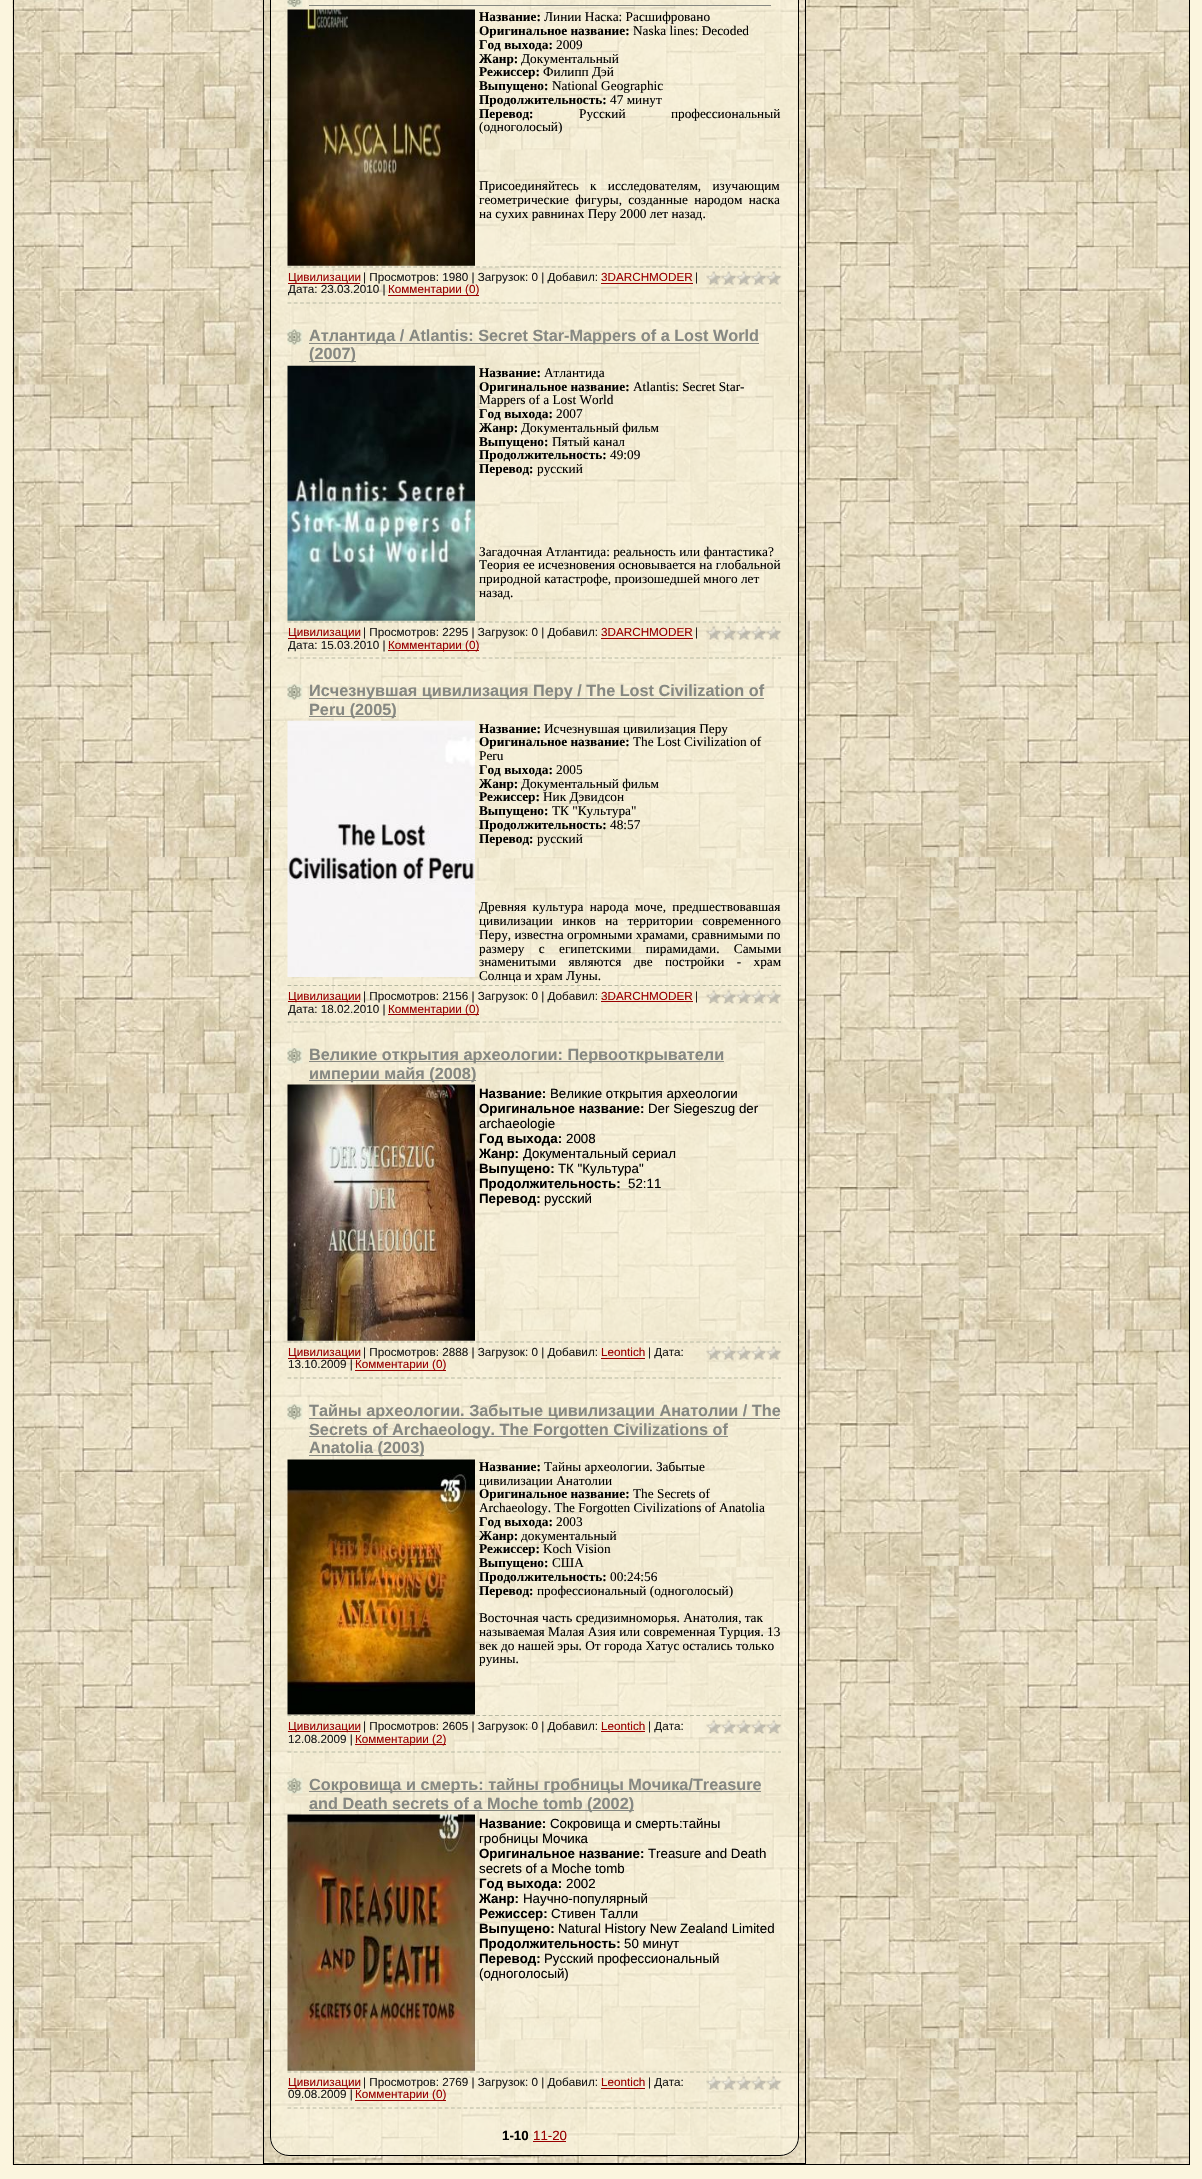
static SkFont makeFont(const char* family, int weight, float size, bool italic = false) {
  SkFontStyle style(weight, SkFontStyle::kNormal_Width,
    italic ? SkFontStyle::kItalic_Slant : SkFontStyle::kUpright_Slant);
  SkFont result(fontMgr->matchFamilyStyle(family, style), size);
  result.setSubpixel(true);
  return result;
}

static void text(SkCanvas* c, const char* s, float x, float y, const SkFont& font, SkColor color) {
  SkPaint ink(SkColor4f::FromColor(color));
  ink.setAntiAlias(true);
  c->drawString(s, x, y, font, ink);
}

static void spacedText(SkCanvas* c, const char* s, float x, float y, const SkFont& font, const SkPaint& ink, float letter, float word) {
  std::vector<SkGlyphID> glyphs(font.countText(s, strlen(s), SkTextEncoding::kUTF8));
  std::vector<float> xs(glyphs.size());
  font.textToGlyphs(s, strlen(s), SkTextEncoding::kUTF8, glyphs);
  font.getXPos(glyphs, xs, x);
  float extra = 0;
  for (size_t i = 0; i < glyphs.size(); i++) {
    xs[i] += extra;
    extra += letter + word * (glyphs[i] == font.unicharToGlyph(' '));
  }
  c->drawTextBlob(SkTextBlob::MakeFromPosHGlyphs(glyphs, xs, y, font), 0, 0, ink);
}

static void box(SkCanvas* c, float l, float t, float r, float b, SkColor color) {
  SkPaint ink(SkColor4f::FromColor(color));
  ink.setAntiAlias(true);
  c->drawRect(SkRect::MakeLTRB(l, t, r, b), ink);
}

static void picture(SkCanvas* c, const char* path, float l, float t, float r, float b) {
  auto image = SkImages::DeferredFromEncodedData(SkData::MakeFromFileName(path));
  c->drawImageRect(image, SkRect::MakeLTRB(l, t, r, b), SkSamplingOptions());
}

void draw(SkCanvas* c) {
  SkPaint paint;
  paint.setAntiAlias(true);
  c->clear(0xfffbf5de);
  picture(c, "img_01.png", 12, 0, 1189, 2165);
  paint.setStyle(SkPaint::kStroke_Style);
  paint.setStrokeWidth(1);
  paint.setColor(0xff000000);
  c->drawRect(SkRect::MakeLTRB(13.5f, -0.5f, 1189.5f, 2164.5f), paint);
  picture(c, "img_02.png", 262, 0, 807, 2164);
  c->drawRect(SkRect::MakeLTRB(263.5f, -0.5f, 805.5f, 2163.5f), paint);
  picture(c, "img_03.png", 270, 0, 799, 2156);
  c->drawRoundRect(SkRect::MakeLTRB(270.5f, -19.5f, 798.5f, 2155.5f), 18.5f, 18.5f, paint);
  picture(c, "img_04.png", 287, 0, 303, 7);
  box(c, 309, 5, 771, 6, 0xff868882);
  picture(c, "img_05.png", 287, 9, 475, 266);
  SkFont face1 = makeFont("Liberation Serif", 700, 13.3f);
  text(c, "Название:", 479, 21, face1, 0xff000000);
  SkFont face2 = makeFont("Liberation Serif", 400, 13.3f);
  text(c, "Линии Наска: Расшифровано", 544, 21, face2, 0xff000000);
  text(c, "Оригинальное название:", 479, 35, face1, 0xff000000);
  text(c, "Naska lines: Decoded", 633, 35, face2, 0xff000000);
  text(c, "Год выхода:", 479, 49, face1, 0xff000000);
  text(c, "2009", 556, 49, face2, 0xff000000);
  text(c, "Жанр:", 479, 63, face1, 0xff000000);
  text(c, "Документальный", 521, 63, face2, 0xff000000);
  text(c, "Режиссер:", 479, 76, face1, 0xff000000);
  text(c, "Филипп Дэй", 543, 76, face2, 0xff000000);
  text(c, "Выпущено:", 479, 90, face1, 0xff000000);
  text(c, "National Geographic", 552, 90, face2, 0xff000000);
  text(c, "Продолжительность:", 479, 104, face1, 0xff000000);
  text(c, "47 минут", 610, 104, face2, 0xff000000);
  text(c, "Перевод:", 479, 118, face1, 0xff000000);
  paint.setStyle(SkPaint::kFill_Style);
  spacedText(c, "Русский профеcсиональный", 579, 118, face2, paint, 0, 42);
  text(c, "(одноголосый)", 479, 131, face2, 0xff000000);
  spacedText(c, "Присоединяйтесь к исследователям, изучающим", 479, 190, face2, paint, 0, 8);
  spacedText(c, "геометрические фигуры, созданные народом наска", 479, 204, face2, paint, 0, 3);
  text(c, "на сухих равнинах Перу 2000 лет назад.", 479, 218, face2, 0xff000000);
  paint.setStyle(SkPaint::kStroke_Style);
  paint.setStrokeWidth(1.2f);
  paint.setColor(0xffb6b8a2);
  paint.setPathEffect(SkDashPathEffect::Make({{3.75f, 2.54f}}, 0));
  c->drawPath(SkPathBuilder().moveTo(287.5f, 267).lineTo(781, 267).detach(), paint);
  paint.setPathEffect(nullptr);
  paint.setPathEffect(SkDashPathEffect::Make({{3.75f, 2.54f}}, 0));
  c->drawPath(SkPathBuilder().moveTo(287.5f, 303).lineTo(781, 303).detach(), paint);
  paint.setPathEffect(nullptr);
  box(c, 288, 283, 360, 284, 0xff990000);
  SkFont face3 = makeFont("Liberation Sans", 400, 11.7f);
  text(c, "Цивилизации", 288, 281, face3, 0xff990000);
  text(c, "| Просмотров: 1980 | Загрузок: 0 | Добавил:", 363, 281, face3, 0xff1a1a1a);
  text(c, "3DARCHMODER", 601, 281, face3, 0xff990000);
  box(c, 601, 283, 693, 284, 0xff990000);
  text(c, "|", 695, 281, face3, 0xff1a1a1a);
  picture(c, "img_06.png", 706, 271, 782, 286);
  text(c, "Дата: 23.03.2010 |", 288, 293, face3, 0xff1a1a1a);
  box(c, 388, 295, 479, 296, 0xff990000);
  text(c, "Комментарии (0)", 388, 293, face3, 0xff990000);
  picture(c, "img_07.png", 287, 329, 303, 345);
  box(c, 309, 343, 759, 344, 0xff868882);
  SkFont face4 = makeFont("Liberation Sans", 700, 16.25f);
  text(c, "Атлантида / Atlantis: Secret Star-Mappers of a Lost World", 309, 341, face4, 0xff868882);
  box(c, 309, 361, 356, 362, 0xff868882);
  text(c, "(2007)", 309, 359, face4, 0xff868882);
  picture(c, "img_08.png", 287, 365, 475, 621);
  text(c, "Название:", 479, 377, face1, 0xff000000);
  text(c, "Атлантида", 544, 377, face2, 0xff000000);
  text(c, "Оригинальное название:", 479, 391, face1, 0xff000000);
  text(c, "Atlantis: Secret Star-", 633, 391, face2, 0xff000000);
  text(c, "Mappers of a Lost World", 479, 404, face2, 0xff000000);
  text(c, "Год выхода:", 479, 418, face1, 0xff000000);
  text(c, "2007", 556, 418, face2, 0xff000000);
  text(c, "Жанр:", 479, 432, face1, 0xff000000);
  text(c, "Документальный фильм", 521, 432, face2, 0xff000000);
  text(c, "Выпущено:", 479, 446, face1, 0xff000000);
  text(c, "Пятый канал", 552, 446, face2, 0xff000000);
  text(c, "Продолжительность:", 479, 459, face1, 0xff000000);
  text(c, "49:09", 610, 459, face2, 0xff000000);
  text(c, "Перевод:", 479, 473, face1, 0xff000000);
  text(c, "русский", 537, 473, face2, 0xff000000);
  text(c, "Загадочная Атлантида: реальность или фантастика?", 479, 556, face2, 0xff000000);
  text(c, "Теория ее исчезновения основывается на глобальной", 479, 569, face2, 0xff000000);
  text(c, "природной катастрофе, произошедшей много лет", 479, 583, face2, 0xff000000);
  text(c, "назад.", 479, 597, face2, 0xff000000);
  paint.setPathEffect(SkDashPathEffect::Make({{3.75f, 2.54f}}, 0));
  c->drawPath(SkPathBuilder().moveTo(287.5f, 622).lineTo(781, 622).detach(), paint);
  paint.setPathEffect(nullptr);
  paint.setPathEffect(SkDashPathEffect::Make({{3.75f, 2.54f}}, 0));
  c->drawPath(SkPathBuilder().moveTo(287.5f, 658).lineTo(781, 658).detach(), paint);
  paint.setPathEffect(nullptr);
  box(c, 288, 638, 360, 639, 0xff990000);
  text(c, "Цивилизации", 288, 636, face3, 0xff990000);
  text(c, "| Просмотров: 2295 | Загрузок: 0 | Добавил:", 363, 636, face3, 0xff1a1a1a);
  text(c, "3DARCHMODER", 601, 636, face3, 0xff990000);
  box(c, 601, 638, 693, 639, 0xff990000);
  text(c, "|", 695, 636, face3, 0xff1a1a1a);
  picture(c, "img_09.png", 706, 626, 782, 641);
  text(c, "Дата: 15.03.2010 |", 288, 649, face3, 0xff1a1a1a);
  box(c, 388, 650, 479, 651, 0xff990000);
  text(c, "Комментарии (0)", 388, 649, face3, 0xff990000);
  picture(c, "img_10.png", 287, 684, 303, 700);
  box(c, 309, 698, 764, 699, 0xff868882);
  text(c, "Исчезнувшая цивилизация Перу / The Lost Civilization of", 309, 696, face4, 0xff868882);
  box(c, 309, 716, 396, 717, 0xff868882);
  text(c, "Peru (2005)", 309, 715, face4, 0xff868882);
  picture(c, "img_11.png", 287, 720, 475, 977);
  text(c, "Название:", 479, 733, face1, 0xff000000);
  text(c, "Исчезнувшая цивилизация Перу", 544, 733, face2, 0xff000000);
  text(c, "Оригинальное название:", 479, 746, face1, 0xff000000);
  text(c, "The Lost Civilization of", 633, 746, face2, 0xff000000);
  text(c, "Peru", 479, 760, face2, 0xff000000);
  text(c, "Год выхода:", 479, 774, face1, 0xff000000);
  text(c, "2005", 556, 774, face2, 0xff000000);
  text(c, "Жанр:", 479, 788, face1, 0xff000000);
  text(c, "Документальный фильм", 521, 788, face2, 0xff000000);
  text(c, "Режиссер:", 479, 801, face1, 0xff000000);
  text(c, "Ник Дэвидсон", 543, 801, face2, 0xff000000);
  text(c, "Выпущено:", 479, 815, face1, 0xff000000);
  text(c, "ТК \"Культура\"", 552, 815, face2, 0xff000000);
  text(c, "Продолжительность:", 479, 829, face1, 0xff000000);
  text(c, "48:57", 610, 829, face2, 0xff000000);
  text(c, "Перевод:", 479, 843, face1, 0xff000000);
  text(c, "русский", 537, 843, face2, 0xff000000);
  paint.setStyle(SkPaint::kFill_Style);
  paint.setColor(0xff000000);
  spacedText(c, "Древняя культура народа моче, предшествовавшая", 479, 911, face2, paint, 0, 3);
  spacedText(c, "цивилизации инков на территории современного", 479, 925, face2, paint, 0, 6);
  text(c, "Перу, известна огромными храмами, сравнимыми по", 479, 939, face2, 0xff000000);
  spacedText(c, "размеру с египетскими пирамидами. Самыми", 479, 953, face2, paint, 0, 11);
  spacedText(c, "знаменитыми являются две постройки - храм", 479, 966, face2, paint, 0, 9);
  text(c, "Солнца и храм Луны.", 479, 980, face2, 0xff000000);
  paint.setStyle(SkPaint::kStroke_Style);
  paint.setColor(0xffb6b8a2);
  paint.setPathEffect(SkDashPathEffect::Make({{3.75f, 2.54f}}, 0));
  c->drawPath(SkPathBuilder().moveTo(287.5f, 985.5f).lineTo(781, 985.5f).detach(), paint);
  paint.setPathEffect(nullptr);
  paint.setPathEffect(SkDashPathEffect::Make({{3.75f, 2.54f}}, 0));
  c->drawPath(SkPathBuilder().moveTo(287.5f, 1022).lineTo(781, 1022).detach(), paint);
  paint.setPathEffect(nullptr);
  box(c, 288, 1001, 360, 1002, 0xff990000);
  text(c, "Цивилизации", 288, 1000, face3, 0xff990000);
  text(c, "| Просмотров: 2156 | Загрузок: 0 | Добавил:", 363, 1000, face3, 0xff1a1a1a);
  text(c, "3DARCHMODER", 601, 1000, face3, 0xff990000);
  box(c, 601, 1001, 693, 1002, 0xff990000);
  text(c, "|", 695, 1000, face3, 0xff1a1a1a);
  picture(c, "img_12.png", 706, 989, 782, 1005);
  text(c, "Дата: 18.02.2010 |", 288, 1013, face3, 0xff1a1a1a);
  box(c, 388, 1014, 479, 1015, 0xff990000);
  text(c, "Комментарии (0)", 388, 1013, face3, 0xff990000);
  picture(c, "img_13.png", 287, 1048, 303, 1064);
  box(c, 309, 1061, 724, 1062, 0xff868882);
  text(c, "Великие открытия археологии: Первооткрыватели", 309, 1060, face4, 0xff868882);
  box(c, 309, 1080, 476, 1081, 0xff868882);
  text(c, "империи майя (2008)", 309, 1079, face4, 0xff868882);
  picture(c, "img_14.png", 287, 1084, 475, 1341);
  SkFont face5 = makeFont("Liberation Sans", 700, 13.3f);
  text(c, "Название:", 479, 1098, face5, 0xff000000);
  SkFont face6 = makeFont("Liberation Sans", 400, 13.3f);
  text(c, "Великие открытия археологии", 550, 1098, face6, 0xff000000);
  text(c, "Оригинальное название:", 479, 1113, face5, 0xff000000);
  text(c, "Der Siegeszug der", 648, 1113, face6, 0xff000000);
  text(c, "archaeologie", 479, 1128, face6, 0xff000000);
  text(c, "Год выхода:", 479, 1143, face5, 0xff000000);
  text(c, "2008", 566, 1143, face6, 0xff000000);
  text(c, "Жанр:", 479, 1158, face5, 0xff000000);
  text(c, "Документальный сериал", 523, 1158, face6, 0xff000000);
  text(c, "Выпущено:", 479, 1173, face5, 0xff000000);
  text(c, "ТК \"Культура\"", 558, 1173, face6, 0xff000000);
  text(c, "Продолжительность:", 479, 1188, face5, 0xff000000);
  text(c, "52:11", 628, 1188, face6, 0xff000000);
  text(c, "Перевод:", 479, 1203, face5, 0xff000000);
  text(c, "русский", 544, 1203, face6, 0xff000000);
  paint.setPathEffect(SkDashPathEffect::Make({{3.75f, 2.54f}}, 0));
  c->drawPath(SkPathBuilder().moveTo(287.5f, 1342).lineTo(781, 1342).detach(), paint);
  paint.setPathEffect(nullptr);
  paint.setPathEffect(SkDashPathEffect::Make({{3.75f, 2.54f}}, 0));
  c->drawPath(SkPathBuilder().moveTo(287.5f, 1378).lineTo(781, 1378).detach(), paint);
  paint.setPathEffect(nullptr);
  box(c, 288, 1358, 360, 1359, 0xff990000);
  text(c, "Цивилизации", 288, 1356, face3, 0xff990000);
  text(c, "| Просмотров: 2888 | Загрузок: 0 | Добавил:", 363, 1356, face3, 0xff1a1a1a);
  text(c, "Leontich", 601, 1356, face3, 0xff990000);
  box(c, 601, 1358, 645, 1359, 0xff990000);
  text(c, "| Дата:", 648, 1356, face3, 0xff1a1a1a);
  picture(c, "img_15.png", 706, 1346, 782, 1361);
  text(c, "13.10.2009 |", 288, 1368, face3, 0xff1a1a1a);
  box(c, 355, 1370, 446, 1371, 0xff990000);
  text(c, "Комментарии (0)", 355, 1368, face3, 0xff990000);
  picture(c, "img_16.png", 287, 1404, 303, 1420);
  box(c, 309, 1418, 780, 1419, 0xff868882);
  text(c, "Тайны археологии. Забытые цивилизации Анатолии / The", 309, 1416, face4, 0xff868882);
  box(c, 309, 1436, 728, 1437, 0xff868882);
  text(c, "Secrets of Archaeology. The Forgotten Civilizations of", 309, 1435, face4, 0xff868882);
  box(c, 309, 1455, 424, 1456, 0xff868882);
  text(c, "Anatolia (2003)", 309, 1453, face4, 0xff868882);
  paint.setPathEffect(SkDashPathEffect::Make({{3.75f, 2.54f}}, 0));
  c->drawPath(SkPathBuilder().moveTo(287.5f, 1715.5f).lineTo(781, 1715.5f).detach(), paint);
  paint.setPathEffect(nullptr);
  picture(c, "img_17.png", 287, 1459, 475, 1715);
  text(c, "Название:", 479, 1471, face1, 0xff000000);
  text(c, "Тайны археологии. Забытые", 544, 1471, face2, 0xff000000);
  text(c, "цивилизации Анатолии", 479, 1485, face2, 0xff000000);
  text(c, "Оригинальное название:", 479, 1498, face1, 0xff000000);
  text(c, "The Secrets of", 633, 1498, face2, 0xff000000);
  text(c, "Archaeology. The Forgotten Civilizations of Anatolia", 479, 1512, face2, 0xff000000);
  text(c, "Год выхода:", 479, 1526, face1, 0xff000000);
  text(c, "2003", 556, 1526, face2, 0xff000000);
  text(c, "Жанр:", 479, 1540, face1, 0xff000000);
  text(c, "документальный", 521, 1540, face2, 0xff000000);
  text(c, "Режиссер:", 479, 1553, face1, 0xff000000);
  text(c, "Koch Vision", 543, 1553, face2, 0xff000000);
  text(c, "Выпущено:", 479, 1567, face1, 0xff000000);
  text(c, "США", 552, 1567, face2, 0xff000000);
  text(c, "Продолжительность:", 479, 1581, face1, 0xff000000);
  text(c, "00:24:56", 610, 1581, face2, 0xff000000);
  text(c, "Перевод:", 479, 1595, face1, 0xff000000);
  text(c, "профессиональный (одноголосый)", 537, 1595, face2, 0xff000000);
  text(c, "Восточная часть средизимноморья. Анатолия, так", 479, 1622, face2, 0xff000000);
  text(c, "называемая Малая Азия или современная Турция. 13", 479, 1636, face2, 0xff000000);
  text(c, "век до нашей эры. От города Хатус остались только", 479, 1650, face2, 0xff000000);
  text(c, "руины.", 479, 1663, face2, 0xff000000);
  paint.setPathEffect(SkDashPathEffect::Make({{3.75f, 2.54f}}, 0));
  c->drawPath(SkPathBuilder().moveTo(287.5f, 1752).lineTo(781, 1752).detach(), paint);
  paint.setPathEffect(nullptr);
  box(c, 288, 1731, 360, 1732, 0xff990000);
  text(c, "Цивилизации", 288, 1730, face3, 0xff990000);
  text(c, "| Просмотров: 2605 | Загрузок: 0 | Добавил:", 363, 1730, face3, 0xff1a1a1a);
  text(c, "Leontich", 601, 1730, face3, 0xff990000);
  box(c, 601, 1731, 645, 1732, 0xff990000);
  text(c, "| Дата:", 648, 1730, face3, 0xff1a1a1a);
  picture(c, "img_18.png", 706, 1719, 782, 1735);
  text(c, "12.08.2009 |", 288, 1743, face3, 0xff1a1a1a);
  box(c, 355, 1744, 446, 1745, 0xff990000);
  text(c, "Комментарии (2)", 355, 1743, face3, 0xff990000);
  picture(c, "img_19.png", 287, 1778, 303, 1794);
  box(c, 309, 1791, 761, 1792, 0xff868882);
  text(c, "Сокровища и смерть: тайны гробницы Мочика/Treasure", 309, 1790, face4, 0xff868882);
  box(c, 309, 1810, 634, 1811, 0xff868882);
  text(c, "and Death secrets of a Moche tomb (2002)", 309, 1809, face4, 0xff868882);
  picture(c, "img_20.png", 287, 1814, 475, 2071);
  text(c, "Название:", 479, 1828, face5, 0xff000000);
  text(c, "Сокровища и смерть:тайны", 550, 1828, face6, 0xff000000);
  text(c, "гробницы Мочика", 479, 1843, face6, 0xff000000);
  text(c, "Оригинальное название:", 479, 1858, face5, 0xff000000);
  text(c, "Treasure and Death", 648, 1858, face6, 0xff000000);
  text(c, "secrets of a Moche tomb", 479, 1873, face6, 0xff000000);
  text(c, "Год выхода:", 479, 1888, face5, 0xff000000);
  text(c, "2002", 566, 1888, face6, 0xff000000);
  text(c, "Жанр:", 479, 1903, face5, 0xff000000);
  text(c, "Научно-популярный", 523, 1903, face6, 0xff000000);
  text(c, "Режиссер:", 479, 1918, face5, 0xff000000);
  text(c, "Стивен Талли", 551, 1918, face6, 0xff000000);
  text(c, "Выпущено:", 479, 1933, face5, 0xff000000);
  text(c, "Natural History New Zealand Limited", 558, 1933, face6, 0xff000000);
  text(c, "Продолжительность:", 479, 1948, face5, 0xff000000);
  text(c, "50 минут", 624, 1948, face6, 0xff000000);
  text(c, "Перевод:", 479, 1963, face5, 0xff000000);
  text(c, "Русский профессиональный", 544, 1963, face6, 0xff000000);
  text(c, "(одноголосый)", 479, 1978, face6, 0xff000000);
  paint.setPathEffect(SkDashPathEffect::Make({{3.75f, 2.54f}}, 0));
  c->drawPath(SkPathBuilder().moveTo(287.5f, 2072).lineTo(781, 2072).detach(), paint);
  paint.setPathEffect(nullptr);
  paint.setPathEffect(SkDashPathEffect::Make({{3.75f, 2.54f}}, 0));
  c->drawPath(SkPathBuilder().moveTo(287.5f, 2108).lineTo(781, 2108).detach(), paint);
  paint.setPathEffect(nullptr);
  box(c, 288, 2088, 360, 2089, 0xff990000);
  text(c, "Цивилизации", 288, 2086, face3, 0xff990000);
  text(c, "| Просмотров: 2769 | Загрузок: 0 | Добавил:", 363, 2086, face3, 0xff1a1a1a);
  text(c, "Leontich", 601, 2086, face3, 0xff990000);
  box(c, 601, 2088, 645, 2089, 0xff990000);
  text(c, "| Дата:", 648, 2086, face3, 0xff1a1a1a);
  picture(c, "img_21.png", 706, 2076, 782, 2091);
  text(c, "09.08.2009 |", 288, 2098, face3, 0xff1a1a1a);
  box(c, 355, 2100, 446, 2101, 0xff990000);
  text(c, "Комментарии (0)", 355, 2098, face3, 0xff990000);
  text(c, "1-10", 502, 2140, face5, 0xff000000);
  text(c, "11-20", 533, 2140, face6, 0xff990000);
  box(c, 533, 2141, 566, 2142, 0xff990000);
}
